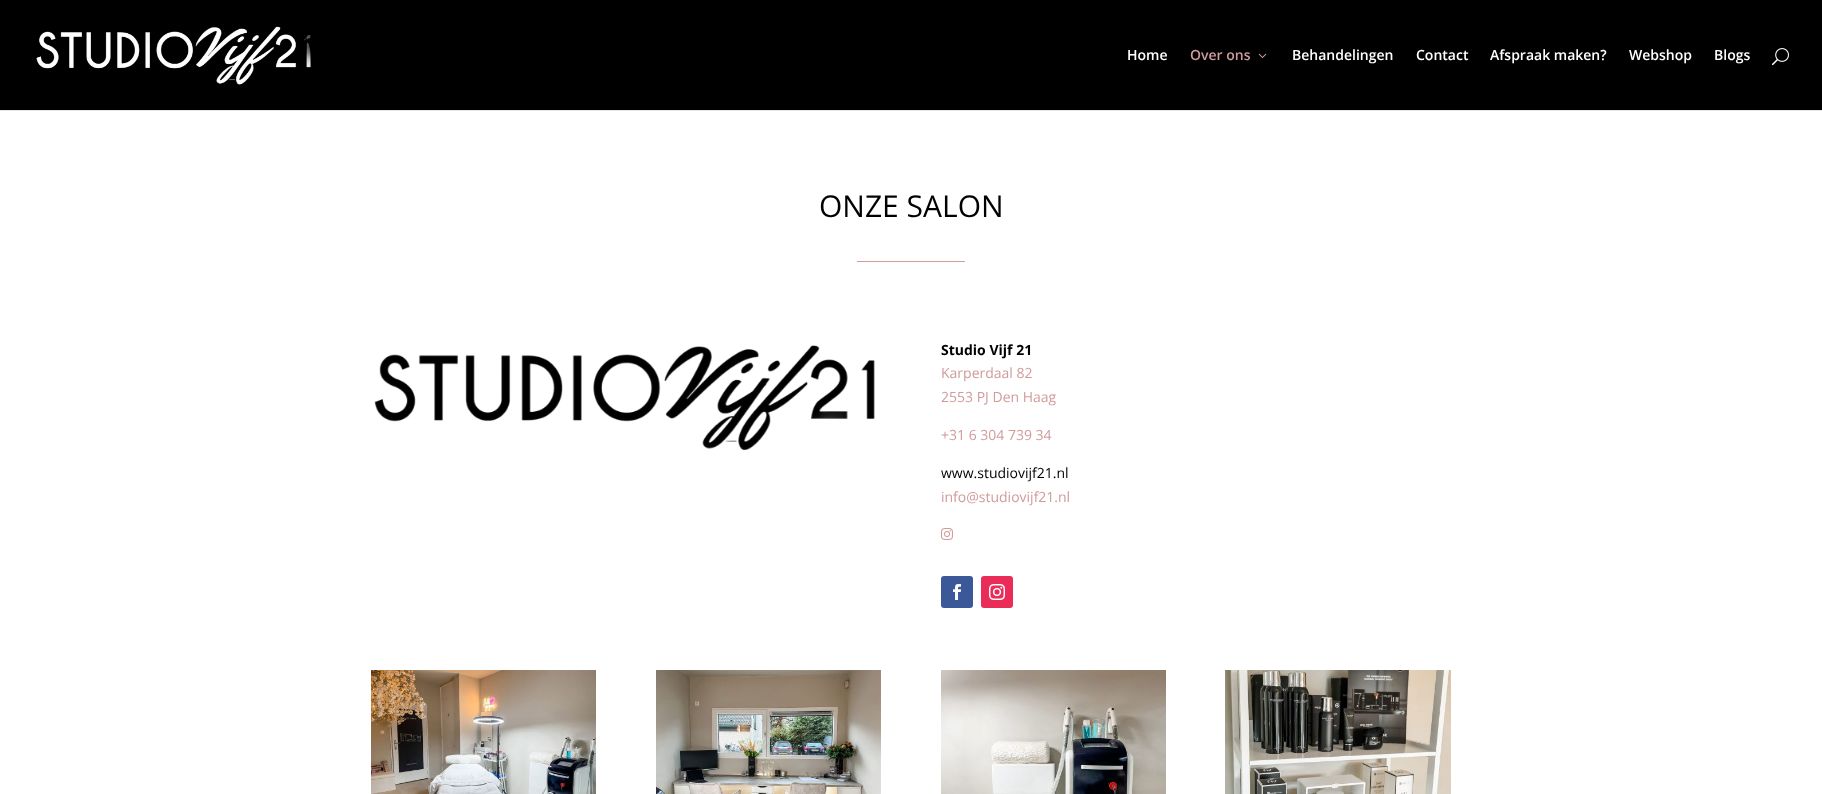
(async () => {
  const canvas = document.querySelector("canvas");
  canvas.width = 1822;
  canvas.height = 794;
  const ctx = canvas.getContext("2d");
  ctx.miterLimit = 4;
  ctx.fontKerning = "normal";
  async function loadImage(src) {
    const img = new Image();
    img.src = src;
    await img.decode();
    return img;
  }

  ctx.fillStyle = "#ffffff";
  ctx.fillRect(0, 0, 1822, 794);
  ctx.fillStyle = "#e6e6e6";
  ctx.fillRect(0, 110, 1822, 1);
  ctx.fillStyle = "#000000";
  ctx.fillRect(0, 0, 1822, 110);
  ctx.drawImage(await loadImage("img/1.png"), 36, 26, 275, 59);
  ctx.drawImage(await loadImage("img/2.png"), 1258, 53, 9, 5);
  ctx.drawImage(await loadImage("img/3.png"), 1772, 48, 17, 18);
  ctx.fillStyle = "#d19b9b";
  ctx.fillRect(857, 261, 108, 1);
  ctx.drawImage(await loadImage("img/4.png"), 374, 345, 501, 106);
  ctx.drawImage(await loadImage("img/5.png"), 941, 528, 12, 12);
  ctx.fillStyle = "#3b5998";
  ctx.beginPath();
  ctx.roundRect(941, 576, 32, 32, 3);
  ctx.fill();
  ctx.drawImage(await loadImage("img/6.png"), 953, 584, 8, 16);
  ctx.fillStyle = "#ea2c59";
  ctx.beginPath();
  ctx.roundRect(981, 576, 32, 32, 3);
  ctx.fill();
  ctx.drawImage(await loadImage("img/7.png"), 989, 584, 16, 16);
  ctx.drawImage(await loadImage("img/8.png"), 371, 670, 225, 124);
  ctx.drawImage(await loadImage("img/9.png"), 656, 670, 225, 124);
  ctx.drawImage(await loadImage("img/10.png"), 941, 670, 225, 124);
  ctx.drawImage(await loadImage("img/11.png"), 1225, 670, 226, 124);
  ctx.font = "600 14px Open Sans";
  ctx.fillStyle = "#ffffff";
  ctx.fillText("Home", 1127, 60);
  ctx.fillStyle = "#d19b9b";
  ctx.fillText("Over ons", 1190, 60);
  ctx.fillStyle = "#ffffff";
  for (const [text, x, y] of [
    ["Behandelingen", 1292, 60],
    ["Contact", 1416, 60],
    ["Afspraak maken?", 1490, 60],
    ["Webshop", 1629, 60],
    ["Blogs", 1714, 60],
  ]) {
    ctx.fillText(text, x, y);
  }
  ctx.font = "30px Open Sans";
  ctx.fillStyle = "#000000";
  ctx.fillText("ONZE SALON", 819, 217);
  ctx.font = "bold 14px Open Sans";
  ctx.fillText("Studio Vijf 21", 941, 355);
  ctx.font = "14px Open Sans";
  ctx.fillStyle = "#d19b9b";
  for (const [text, x, y] of [
    ["Karperdaal 82", 941, 378],
    ["2553 PJ Den Haag", 941, 402],
    ["+31 6 304 739 34", 941, 440],
  ]) {
    ctx.fillText(text, x, y);
  }
  ctx.fillStyle = "#000000";
  ctx.fillText("www.studiovijf21.nl", 941, 478);
  ctx.fillStyle = "#d19b9b";
  ctx.fillText("info@studiovijf21.nl", 941, 502);
})();
